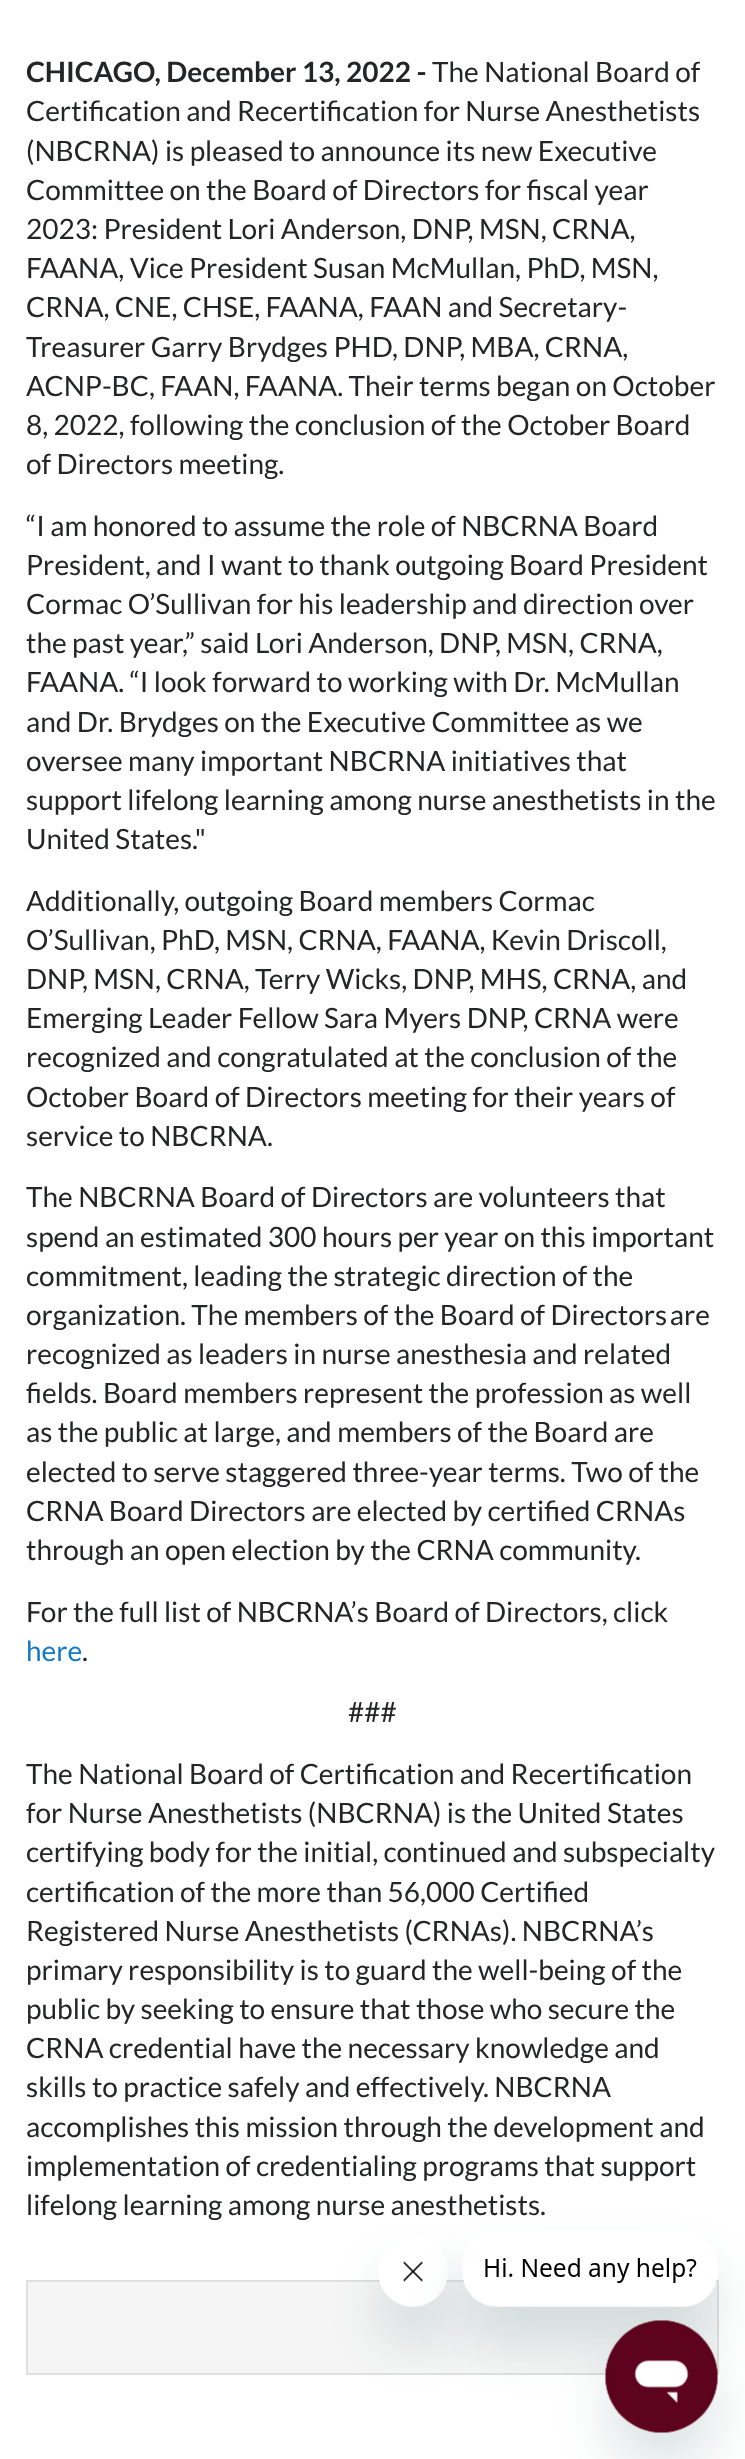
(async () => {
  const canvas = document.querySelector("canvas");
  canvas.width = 745;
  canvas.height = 2459;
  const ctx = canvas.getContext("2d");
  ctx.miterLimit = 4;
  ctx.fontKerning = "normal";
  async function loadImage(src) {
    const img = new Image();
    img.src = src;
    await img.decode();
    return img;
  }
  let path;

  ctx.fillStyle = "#ffffff";
  ctx.fillRect(0, 0, 745, 2459);
  ctx.fillStyle = "#f5f5f5";
  ctx.beginPath();
  ctx.rect(27, 2281, 691, 93);
  ctx.fill();
  ctx.strokeStyle = "#e0e0e0";
  ctx.lineWidth = 2;
  ctx.stroke();
  ctx.save();
  path = new Path2D("M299 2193H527V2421H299ZM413 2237C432.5 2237 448 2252.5 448 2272C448 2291.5 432.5 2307 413 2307C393.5 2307 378 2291.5 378 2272C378 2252.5 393.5 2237 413 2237Z");
  ctx.clip(path, "evenodd");
  ctx.fillStyle = "rgba(23, 73, 77, 0.15)";
  ctx.filter = "blur(26px)";
  ctx.beginPath();
  ctx.roundRect(378, 2272, 70, 70, 35);
  ctx.fill();
  ctx.filter = "none";
  ctx.restore();
  ctx.drawImage(await loadImage("img/2.png"), 379, 2261, 68, 46);
  ctx.save();
  path = new Path2D("M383 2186H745V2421H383ZM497 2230H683C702.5 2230 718 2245.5 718 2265V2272C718 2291.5 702.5 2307 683 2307H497C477.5 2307 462 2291.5 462 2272V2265C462 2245.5 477.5 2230 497 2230Z");
  ctx.clip(path, "evenodd");
  ctx.fillStyle = "rgba(23, 73, 77, 0.15)";
  ctx.filter = "blur(26px)";
  ctx.beginPath();
  ctx.roundRect(462, 2265, 256, 77, 35);
  ctx.fill();
  ctx.filter = "none";
  ctx.restore();
  ctx.drawImage(await loadImage("img/1.png"), 463, 2258, 253, 48);
  ctx.fillStyle = "rgba(23, 73, 77, 0.15)";
  ctx.filter = "blur(26px)";
  ctx.beginPath();
  ctx.roundRect(606, 2356, 112, 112, 56);
  ctx.fill();
  ctx.filter = "none";
  ctx.drawImage(await loadImage("img/3.png"), 605, 2320, 113, 113);
  ctx.font = "bold 28px Lato";
  ctx.fillStyle = "#242526";
  ctx.fillText("CHICAGO, December 13, 2022 -", 26, 82);
  ctx.font = "28px Lato";
  for (const [text, x, y] of [
    ["The National Board of", 432, 82],
    ["Certification and Recertification for Nurse Anesthetists", 26, 121],
    ["(NBCRNA) is pleased to announce its new Executive", 26, 161],
    ["Committee on the Board of Directors for fiscal year", 26, 200],
    ["2023: President Lori Anderson, DNP, MSN, CRNA,", 26, 239],
    ["FAANA, Vice President Susan McMullan, PhD, MSN,", 26, 278],
    ["CRNA, CNE, CHSE, FAANA, FAAN and Secretary-", 26, 317],
    ["Treasurer Garry Brydges PHD, DNP, MBA, CRNA,", 26, 357],
    ["ACNP-BC, FAAN, FAANA. Their terms began on October", 26, 396],
    ["8, 2022, following the conclusion of the October Board", 26, 435],
    ["of Directors meeting.", 26, 474],
    ["“I am honored to assume the role of NBCRNA Board", 26, 536],
    ["President, and I want to thank outgoing Board President", 26, 575],
    ["Cormac O’Sullivan for his leadership and direction over", 26, 614],
    ["the past year,” said Lori Anderson, DNP, MSN, CRNA,", 26, 653],
    ["FAANA. “I look forward to working with Dr. McMullan", 26, 692],
    ["and Dr. Brydges on the Executive Committee as we", 26, 732],
    ["oversee many important NBCRNA initiatives that", 26, 771],
    ["support lifelong learning among nurse anesthetists in the", 26, 810],
    ["United States.\"", 26, 849],
    ["Additionally, outgoing Board members Cormac", 26, 911],
    ["O’Sullivan, PhD, MSN, CRNA, FAANA, Kevin Driscoll,", 26, 950],
    ["DNP, MSN, CRNA, Terry Wicks, DNP, MHS, CRNA, and", 26, 989],
    ["Emerging Leader Fellow Sara Myers DNP, CRNA were", 26, 1028],
    ["recognized and congratulated at the conclusion of the", 26, 1067],
    ["October Board of Directors meeting for their years of", 26, 1107],
    ["service to NBCRNA.", 26, 1146],
    ["The NBCRNA Board of Directors are volunteers that", 26, 1207],
    ["spend an estimated 300 hours per year on this important", 26, 1247],
    ["commitment, leading the strategic direction of the", 26, 1286],
    ["organization. The members of the Board of Directors are", 26, 1325],
    ["recognized as leaders in nurse anesthesia and related", 26, 1364],
    ["fields. Board members represent the profession as well", 26, 1403],
    ["as the public at large, and members of the Board are", 26, 1442],
    ["elected to serve staggered three-year terms. Two of the", 26, 1482],
    ["CRNA Board Directors are elected by certified CRNAs", 26, 1521],
    ["through an open election by the CRNA community.", 26, 1560],
    ["For the full list of NBCRNA’s Board of Directors, click", 26, 1622],
  ]) {
    ctx.fillText(text, x, y);
  }
  ctx.fillStyle = "#1379c7";
  ctx.fillText("here", 26, 1661);
  ctx.fillStyle = "#242526";
  for (const [text, x, y] of [
    [".", 82, 1661],
    ["###", 348, 1722],
    ["The National Board of Certification and Recertification", 26, 1784],
    ["for Nurse Anesthetists (NBCRNA) is the United States", 26, 1823],
    ["certifying body for the initial, continued and subspecialty", 26, 1862],
    ["certification of the more than 56,000 Certified", 26, 1902],
    ["Registered Nurse Anesthetists (CRNAs). NBCRNA’s", 26, 1941],
    ["primary responsibility is to guard the well-being of the", 26, 1980],
    ["public by seeking to ensure that those who secure the", 26, 2019],
    ["CRNA credential have the necessary knowledge and", 26, 2058],
    ["skills to practice safely and effectively. NBCRNA", 26, 2097],
    ["accomplishes this mission through the development and", 26, 2137],
    ["implementation of credentialing programs that support", 26, 2176],
    ["lifelong learning among nurse anesthetists.", 26, 2215],
  ]) {
    ctx.fillText(text, x, y);
  }
})();
